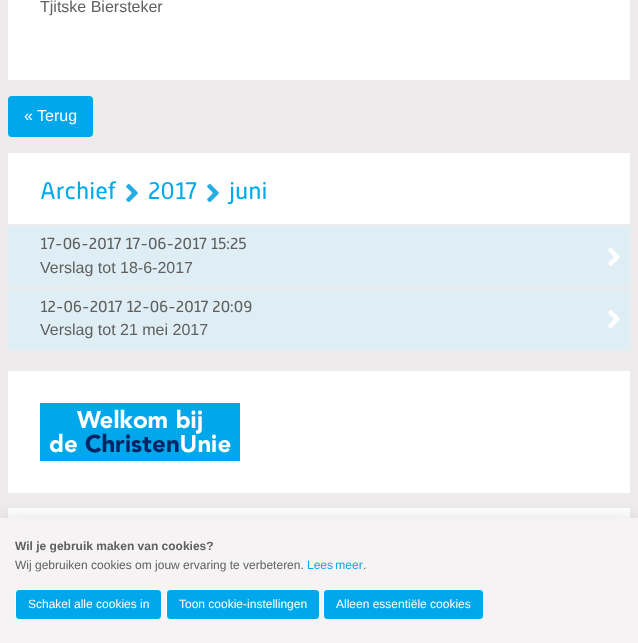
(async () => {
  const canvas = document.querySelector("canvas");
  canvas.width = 638;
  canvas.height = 643;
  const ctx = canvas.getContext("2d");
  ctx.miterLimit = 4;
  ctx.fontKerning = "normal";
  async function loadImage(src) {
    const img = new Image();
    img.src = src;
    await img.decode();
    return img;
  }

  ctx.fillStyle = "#edebeb";
  ctx.fillRect(0, 0, 638, 643);
  ctx.fillStyle = "#ffffff";
  ctx.fillRect(8, 0, 622, 224);
  ctx.fillStyle = "#edebeb";
  ctx.fillRect(8, 80, 622, 73);
  ctx.fillStyle = "#00a7eb";
  ctx.beginPath();
  ctx.roundRect(8, 96, 85, 41, 4);
  ctx.fill();
  ctx.drawImage(await loadImage("img/1.png"), 126, 184, 12, 18);
  ctx.drawImage(await loadImage("img/1.png"), 207, 184, 12, 18);
  ctx.fillStyle = "#deeef4";
  ctx.fillRect(8, 232, 622, 49);
  ctx.save();
  ctx.beginPath();
  ctx.rect(8, 0, 622, 352);
  ctx.clip();
  ctx.strokeStyle = "#deeef4";
  ctx.lineWidth = 6;
  ctx.strokeRect(5, 229, 628, 55);
  ctx.restore();
  ctx.drawImage(await loadImage("img/2.png"), 608, 248, 12, 18);
  ctx.fillRect(8, 295, 622, 49);
  ctx.save();
  ctx.beginPath();
  ctx.rect(8, 0, 622, 352);
  ctx.clip();
  ctx.strokeStyle = "#deeef4";
  ctx.lineWidth = 6;
  ctx.strokeRect(5, 292, 628, 55);
  ctx.restore();
  ctx.drawImage(await loadImage("img/2.png"), 608, 310, 12, 18);
  ctx.fillStyle = "#ffffff";
  ctx.fillRect(8, 371, 622, 122);
  ctx.drawImage(await loadImage("img/3.png"), 40, 403, 200, 58);
  ctx.fillRect(8, 508, 622, 10);
  ctx.fillStyle = "rgba(0, 0, 0, 0.2)";
  ctx.filter = "blur(10px)";
  ctx.beginPath();
  ctx.rect(0, 523, 638, 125);
  ctx.fill();
  ctx.filter = "none";
  ctx.fillStyle = "#f5f3f3";
  ctx.fillRect(0, 518, 638, 125);
  ctx.fillStyle = "#00a7eb";
  ctx.beginPath();
  ctx.roundRect(15.5, 589.5, 146, 30, 3.5);
  ctx.fill();
  ctx.strokeStyle = "#ffffff";
  ctx.stroke();
  ctx.beginPath();
  ctx.roundRect(166.5, 589.5, 153, 30, 3.5);
  ctx.fill();
  ctx.stroke();
  ctx.beginPath();
  ctx.roundRect(323.5, 589.5, 160, 30, 3.5);
  ctx.fill();
  ctx.stroke();
  ctx.font = "16px Liberation Sans";
  ctx.fillStyle = "#606060";
  ctx.fillText("Tjitske Biersteker", 40, 12);
  ctx.fillStyle = "#ffffff";
  ctx.fillText("« Terug", 24, 121);
  ctx.font = "24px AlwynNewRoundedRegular";
  ctx.fillStyle = "#00abec";
  for (const [text, x, y] of [
    ["Archief", 40, 199],
    ["2017", 148, 199],
    ["juni", 229, 199],
  ]) {
    ctx.fillText(text, x, y);
  }
  ctx.font = "16px AlwynNewRoundedRegular";
  ctx.fillStyle = "#606060";
  ctx.fillText("17-06-2017 17-06-2017 15:25", 40, 249);
  ctx.font = "16px Liberation Sans";
  ctx.fillText("Verslag tot 18-6-2017", 40, 273);
  ctx.font = "16px AlwynNewRoundedRegular";
  ctx.fillText("12-06-2017 12-06-2017 20:09", 40, 312);
  ctx.font = "16px Liberation Sans";
  ctx.fillText("Verslag tot 21 mei 2017", 40, 335);
  ctx.font = "bold 12px Liberation Sans";
  ctx.fillText("Wil je gebruik maken van cookies?", 15, 550);
  ctx.font = "12px Liberation Sans";
  ctx.fillText("Wij gebruiken cookies om jouw ervaring te verbeteren.", 15, 569);
  ctx.wordSpacing = "-1px";
  ctx.fillStyle = "#00abec";
  ctx.fillText("Lees meer", 307, 569);
  ctx.wordSpacing = "0px";
  ctx.fillStyle = "#606060";
  ctx.fillText(".", 363, 569);
  ctx.fillStyle = "#ffffff";
  for (const [text, x, y] of [
    ["Schakel alle cookies in", 28, 608],
    ["Toon cookie-instellingen", 179, 608],
    ["Alleen essentiële cookies", 336, 608],
  ]) {
    ctx.fillText(text, x, y);
  }
})();
